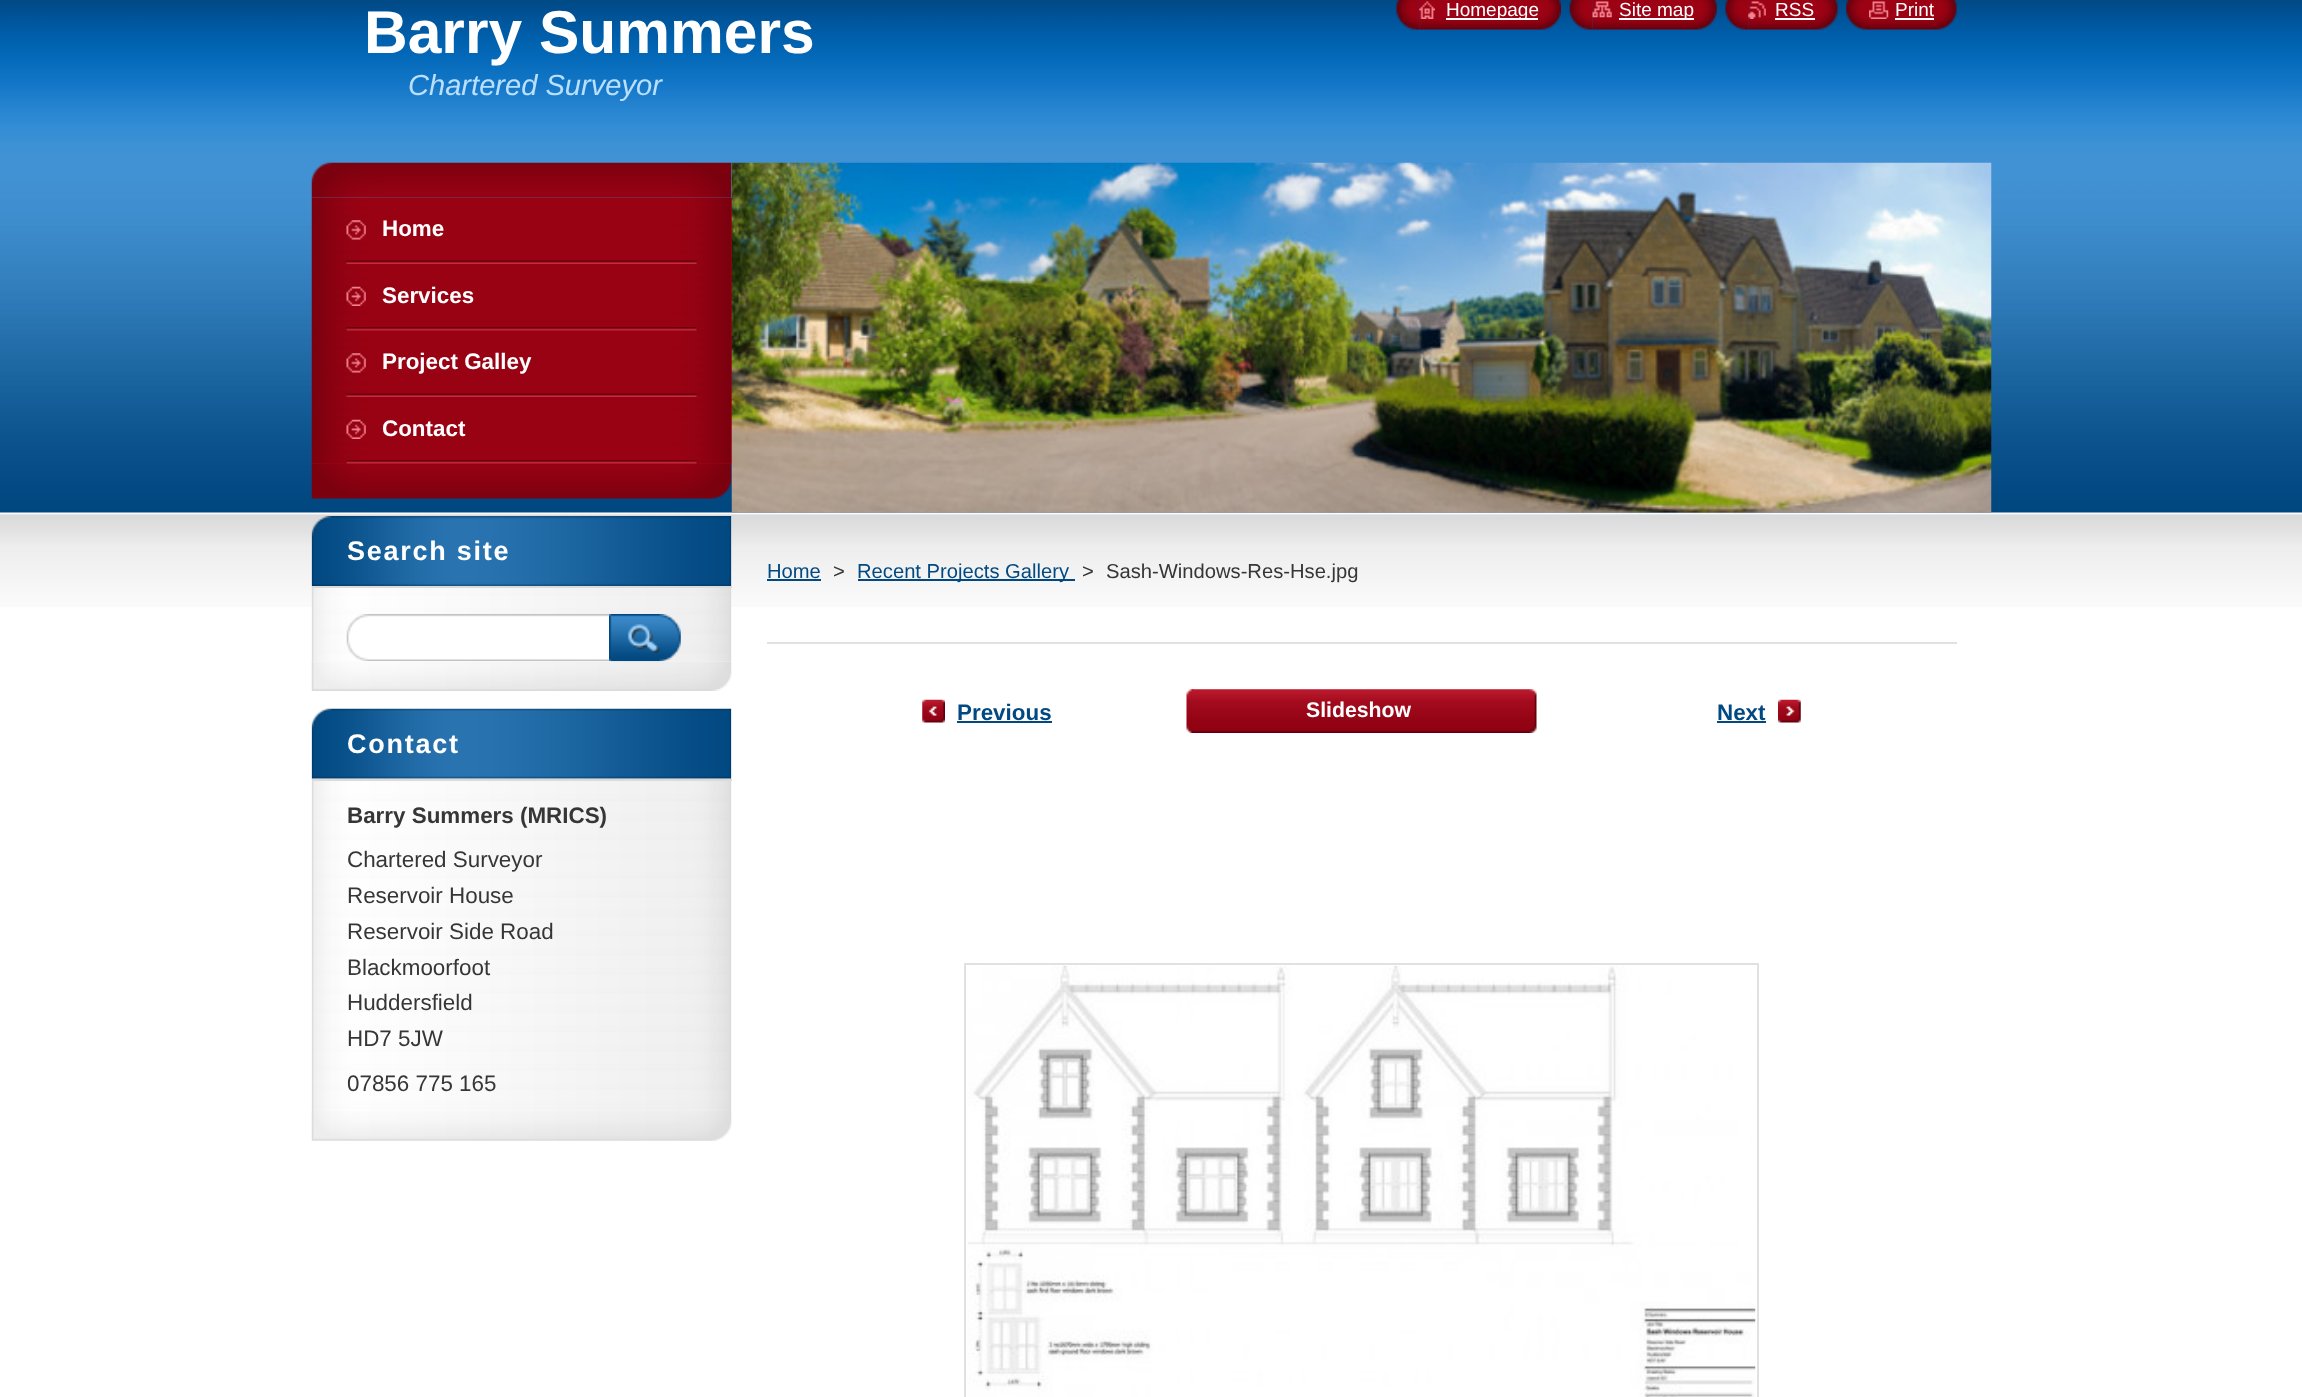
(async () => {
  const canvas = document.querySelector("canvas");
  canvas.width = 2302;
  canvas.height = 1397;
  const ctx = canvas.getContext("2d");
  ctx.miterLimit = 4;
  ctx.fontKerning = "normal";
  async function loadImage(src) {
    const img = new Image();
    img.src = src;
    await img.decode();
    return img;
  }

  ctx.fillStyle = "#ffffff";
  ctx.fillRect(0, 0, 2302, 1397);
  ctx.drawImage(await loadImage("img/1.png"), 0, 0, 2302, 607);
  ctx.drawImage(await loadImage("img/2.png"), 1396, 0, 24, 30);
  ctx.drawImage(await loadImage("img/3.png"), 1419, 0, 142, 30);
  ctx.drawImage(await loadImage("img/4.png"), 1419, 1, 16, 18);
  ctx.fillRect(1446, 18, 92, 2);
  ctx.drawImage(await loadImage("img/5.png"), 1569, 0, 24, 30);
  ctx.drawImage(await loadImage("img/6.png"), 1592, 0, 125, 30);
  ctx.drawImage(await loadImage("img/7.png"), 1592, 1, 20, 17);
  ctx.fillRect(1619, 18, 75, 2);
  ctx.drawImage(await loadImage("img/8.png"), 1725, 0, 24, 30);
  ctx.drawImage(await loadImage("img/9.png"), 1748, 0, 90, 30);
  ctx.drawImage(await loadImage("img/10.png"), 1748, 1, 18, 18);
  ctx.fillRect(1775, 18, 40, 2);
  ctx.drawImage(await loadImage("img/11.png"), 1846, 0, 23, 30);
  ctx.drawImage(await loadImage("img/12.png"), 1869, 0, 88, 30);
  ctx.drawImage(await loadImage("img/13.png"), 1869, 1, 20, 18);
  ctx.fillRect(1895, 18, 39, 2);
  ctx.drawImage(await loadImage("img/14.png"), 311, 162, 421, 36);
  ctx.drawImage(await loadImage("img/15.png"), 311, 463, 421, 36);
  ctx.fillStyle = "#9d0214";
  ctx.fillRect(312, 198, 420, 266);
  ctx.drawImage(await loadImage("img/16.png"), 311, 197, 421, 267);
  ctx.drawImage(await loadImage("img/17.png"), 346, 260, 351, 4);
  ctx.drawImage(await loadImage("img/18.png"), 346, 220, 20, 20);
  ctx.drawImage(await loadImage("img/19.png"), 346, 327, 351, 4);
  ctx.drawImage(await loadImage("img/20.png"), 346, 286, 20, 20);
  ctx.drawImage(await loadImage("img/21.png"), 346, 393, 351, 4);
  ctx.drawImage(await loadImage("img/22.png"), 346, 353, 20, 20);
  ctx.drawImage(await loadImage("img/23.png"), 346, 460, 351, 4);
  ctx.drawImage(await loadImage("img/24.png"), 346, 419, 20, 20);
  ctx.drawImage(await loadImage("img/25.png"), 311, 661, 421, 30);
  ctx.drawImage(await loadImage("img/26.png"), 311, 516, 421, 70);
  ctx.drawImage(await loadImage("img/27.png"), 311, 586, 421, 75);
  ctx.fillStyle = "#dbdbdb";
  ctx.fillRect(312, 586, 420, 2);
  ctx.drawImage(await loadImage("img/28.png"), 346, 614, 263, 47);
  ctx.drawImage(await loadImage("img/29.png"), 609, 614, 72, 48);
  ctx.drawImage(await loadImage("img/30.png"), 311, 1111, 421, 30);
  ctx.drawImage(await loadImage("img/32.png"), 311, 778, 421, 333);
  ctx.drawImage(await loadImage("img/31.png"), 311, 708, 421, 71);
  ctx.fillRect(312, 779, 420, 2);
  ctx.drawImage(await loadImage("img/33.png"), 731, 162, 1261, 351);
  for (const [x, y, w, h, color] of [
    [767, 579, 54, 2, "#024981"],
    [858, 579, 217, 2, "#024981"],
    [767, 642, 1190, 2, "#e1e1e1"],
  ]) {
    ctx.fillStyle = color;
    ctx.fillRect(x, y, w, h);
  }
  ctx.drawImage(await loadImage("img/34.png"), 922, 699, 23, 24);
  ctx.fillStyle = "#024981";
  ctx.fillRect(957, 721, 95, 2);
  ctx.drawImage(await loadImage("img/35.png"), 1186, 689, 8, 44);
  ctx.drawImage(await loadImage("img/36.png"), 1191, 689, 346, 44);
  ctx.drawImage(await loadImage("img/37.png"), 1778, 699, 23, 24);
  ctx.fillRect(1717, 721, 49, 2);
  ctx.strokeStyle = "#e1e1e1";
  ctx.lineWidth = 2;
  ctx.strokeRect(965, 964, 793, 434);
  ctx.drawImage(await loadImage("img/38.png"), 967, 965, 789, 432);
  ctx.font = "bold 60.5px Liberation Sans";
  ctx.fillStyle = "#ffffff";
  ctx.fillText("Barry Summers", 364, 53);
  ctx.font = "italic 29.1px Liberation Sans";
  ctx.fillStyle = "#bae0ff";
  ctx.fillText("Chartered Surveyor", 408, 95);
  ctx.font = "19px Liberation Sans";
  ctx.fillStyle = "#ffffff";
  for (const [text, x, y] of [
    ["Homepage", 1446, 16],
    ["Site map", 1619, 16],
    ["RSS", 1775, 16],
    ["Print", 1895, 16],
  ]) {
    ctx.fillText(text, x, y);
  }
  ctx.font = "bold 22.4px Liberation Sans";
  for (const [text, x, y] of [
    ["Home", 382, 236],
    ["Services", 382, 303],
    ["Project Galley", 382, 369],
    ["Contact", 382, 436],
  ]) {
    ctx.fillText(text, x, y);
  }
  ctx.letterSpacing = "1.75px";
  ctx.font = "bold 27px Liberation Sans";
  ctx.fillText("Search site", 347, 560);
  ctx.fillText("Contact", 347, 753);
  ctx.letterSpacing = "0px";
  ctx.font = "bold 22.4px Liberation Sans";
  ctx.fillStyle = "#363636";
  ctx.fillText("Barry Summers (MRICS)", 347, 823);
  ctx.font = "22.4px Liberation Sans";
  for (const [text, x, y] of [
    ["Chartered Surveyor", 347, 867],
    ["Reservoir House", 347, 903],
    ["Reservoir Side Road", 347, 939],
    ["Blackmoorfoot", 347, 975],
    ["Huddersfield", 347, 1010],
    ["HD7 5JW", 347, 1046],
    ["07856 775 165", 347, 1091],
  ]) {
    ctx.fillText(text, x, y);
  }
  ctx.font = "20.2px Liberation Sans";
  ctx.fillStyle = "#024981";
  ctx.fillText("Home", 767, 578);
  ctx.fillStyle = "#363636";
  ctx.fillText(">", 833, 578);
  ctx.fillStyle = "#024981";
  ctx.fillText("Recent Projects Gallery", 857, 578);
  ctx.fillStyle = "#363636";
  ctx.fillText(">", 1082, 578);
  ctx.fillText("Sash-Windows-Res-Hse.jpg", 1106, 578);
  ctx.font = "bold 22.4px Liberation Sans";
  ctx.fillStyle = "#024981";
  ctx.fillText("Previous", 957, 720);
  ctx.font = "bold 21.25px Liberation Sans";
  ctx.fillStyle = "#ffffff";
  ctx.fillText("Slideshow", 1306, 717);
  ctx.font = "bold 22.4px Liberation Sans";
  ctx.fillStyle = "#024981";
  ctx.fillText("Next", 1717, 720);
})();
